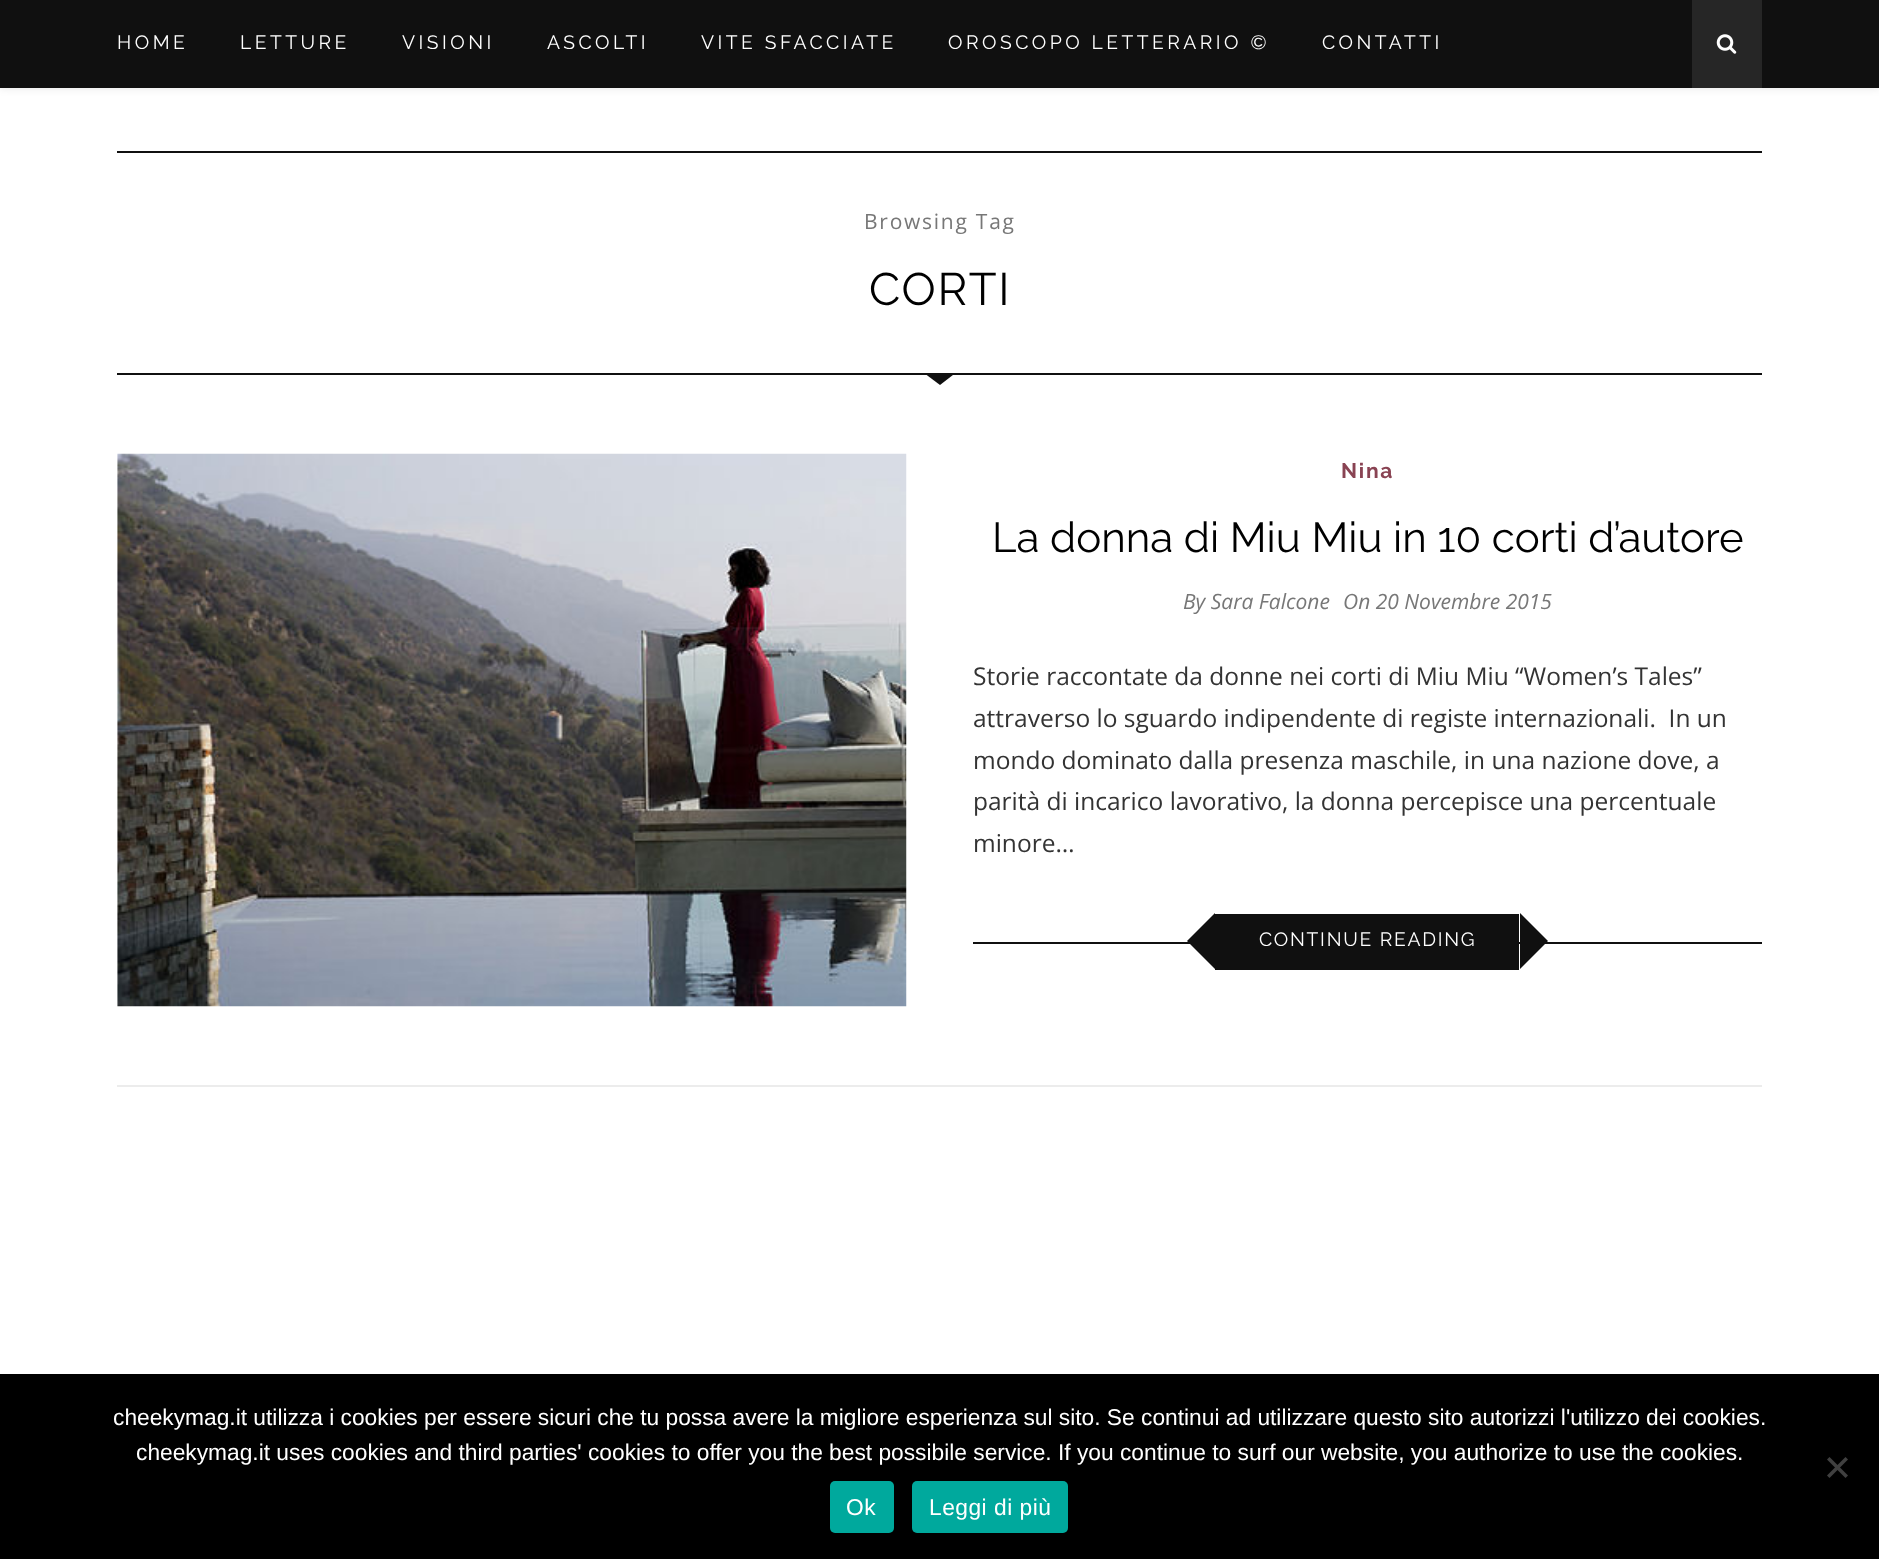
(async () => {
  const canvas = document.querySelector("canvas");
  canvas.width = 1879;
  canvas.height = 1559;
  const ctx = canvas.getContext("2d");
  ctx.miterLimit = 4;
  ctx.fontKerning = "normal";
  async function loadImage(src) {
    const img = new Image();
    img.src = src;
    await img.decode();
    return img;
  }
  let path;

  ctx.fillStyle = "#ffffff";
  ctx.fillRect(0, 0, 1879, 1559);
  ctx.fillStyle = "rgba(0, 0, 0, 0.1)";
  ctx.filter = "blur(4.5px)";
  ctx.beginPath();
  ctx.rect(0, 0, 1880, 88);
  ctx.fill();
  ctx.filter = "none";
  ctx.fillStyle = "#101010";
  ctx.fillRect(0, 0, 1879, 88);
  ctx.fillStyle = "#262626";
  ctx.fillRect(1692, 0, 70, 88);
  ctx.drawImage(await loadImage("img/1.png"), 1716, 34, 21, 20);
  ctx.fillStyle = "#101010";
  ctx.fillRect(117, 151, 1645, 2);
  ctx.fillRect(117, 373, 1645, 2);
  path = new Path2D("M924 373H955.5L940 385Z");
  ctx.fill(path);
  ctx.fillStyle = "#ececec";
  ctx.fillRect(117, 1085, 1645, 2);
  ctx.drawImage(await loadImage("img/2.png"), 117, 453, 790, 554);
  ctx.fillStyle = "#101010";
  ctx.fillRect(973, 942, 789, 2);
  ctx.fillRect(1215, 914, 304, 56);
  path = new Path2D("M1215 913V969L1187 941Z");
  ctx.fill(path);
  path = new Path2D("M1520 969V913L1548 941Z");
  ctx.fill(path);
  ctx.fillStyle = "#000000";
  ctx.fillRect(0, 1374, 1879, 185);
  ctx.fillStyle = "#404040";
  path = new Path2D("M1845.5 1457L1848 1459.5L1829.5 1478L1827 1475.5Z");
  ctx.fill(path);
  path = new Path2D("M1827 1459.5L1829.5 1457L1848 1475.5L1845.5 1478Z");
  ctx.fill(path);
  ctx.fillStyle = "#00a99d";
  ctx.beginPath();
  ctx.roundRect(830, 1481, 64, 52, 5);
  ctx.fill();
  ctx.beginPath();
  ctx.roundRect(912, 1481, 156, 52, 5);
  ctx.fill();
  ctx.letterSpacing = "3.5px";
  ctx.font = "19.25px Raleway";
  ctx.fillStyle = "#ffffff";
  for (const [text, x, y] of [
    ["HOME", 117, 49],
    ["LETTURE", 240, 49],
    ["VISIONI", 402, 49],
    ["ASCOLTI", 547, 49],
    ["VITE SFACCIATE", 701, 49],
    ["OROSCOPO LETTERARIO ©", 948, 49],
    ["CONTATTI", 1322, 49],
  ]) {
    ctx.fillText(text, x, y);
  }
  ctx.letterSpacing = "1.75px";
  ctx.font = "21px Open Sans";
  ctx.fillStyle = "#777777";
  ctx.fillText("Browsing Tag", 864, 229);
  ctx.font = "45.5px Raleway";
  ctx.fillStyle = "#000000";
  ctx.fillText("CORTI", 869, 305);
  ctx.font = "bold 21px Raleway";
  ctx.fillStyle = "#894353";
  ctx.fillText("Nina", 1341, 478);
  ctx.letterSpacing = "0px";
  ctx.font = "42px Raleway";
  ctx.fillStyle = "#000000";
  ctx.fillText("La donna di Miu Miu in 10 corti d’autore", 992, 552);
  ctx.font = "italic 21px Open Sans";
  ctx.fillStyle = "#777777";
  ctx.fillText("By Sara Falcone", 1183, 609);
  ctx.fillText("On 20 Novembre 2015", 1343, 609);
  ctx.font = "24.5px Open Sans";
  ctx.fillStyle = "#333333";
  for (const [text, x, y] of [
    ["Storie raccontate da donne nei corti di Miu Miu “Women’s Tales”", 973, 685],
    ["attraverso lo sguardo indipendente di registe internazionali.  In un", 973, 727],
    ["mondo dominato dalla presenza maschile, in una nazione dove, a", 973, 769],
    ["parità di incarico lavorativo, la donna percepisce una percentuale", 973, 810],
    ["minore…", 973, 852],
  ]) {
    ctx.fillText(text, x, y);
  }
  ctx.letterSpacing = "1.75px";
  ctx.font = "19.25px Raleway";
  ctx.fillStyle = "#ffffff";
  ctx.fillText("CONTINUE READING", 1259, 946);
  ctx.letterSpacing = "0px";
  ctx.font = "22.75px Liberation Sans";
  ctx.fillText("cheekymag.it utilizza i cookies per essere sicuri che tu possa avere la migliore esperienza sul sito. Se continui ad utilizzare questo sito autorizzi l'utilizzo dei cookies.", 113, 1425);
  ctx.fillText("cheekymag.it uses cookies and third parties' cookies to offer you the best possibile service. If you continue to surf our website, you authorize to use the cookies.", 136, 1460);
  ctx.letterSpacing = "0.5px";
  ctx.fillText("Ok", 846, 1515);
  ctx.fillText("Leggi di più", 929, 1515);
})();
